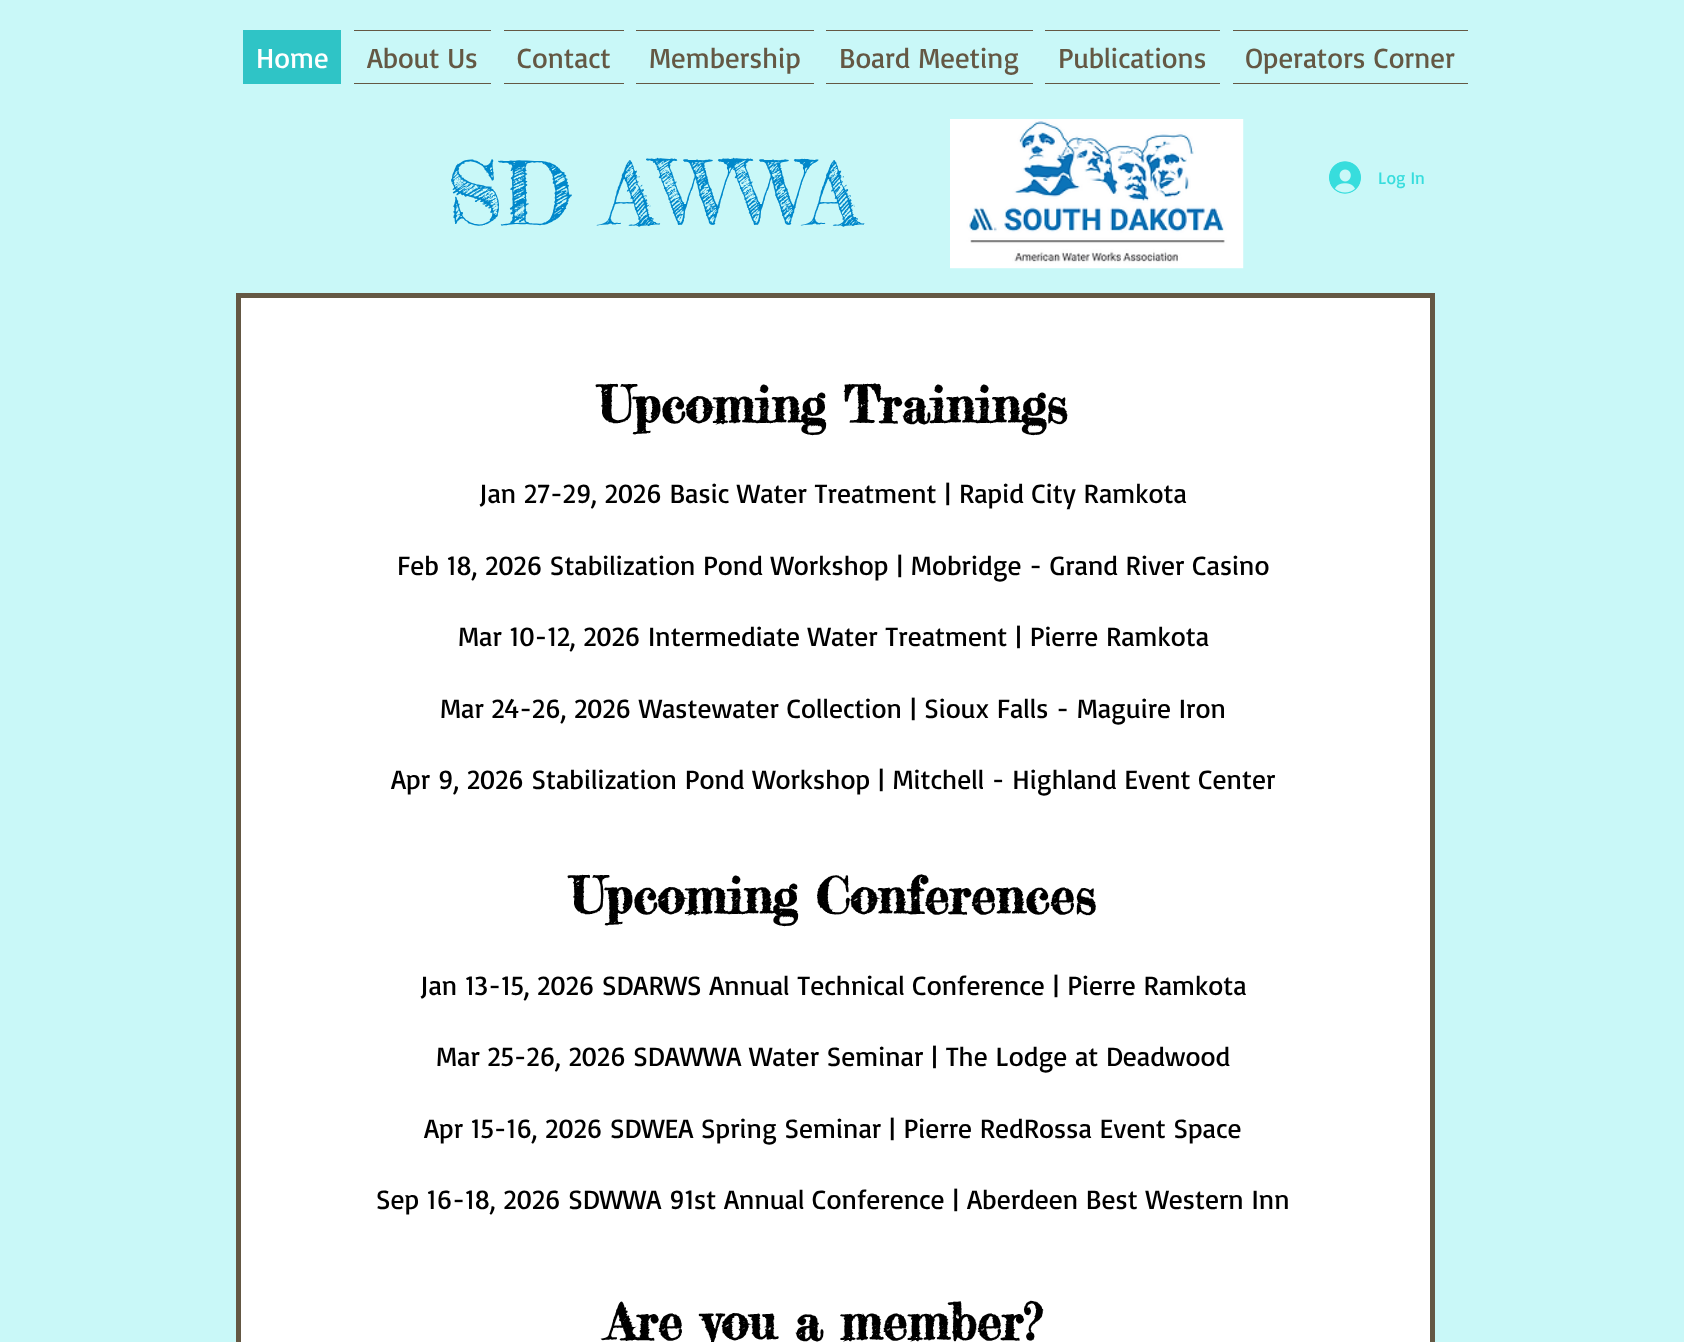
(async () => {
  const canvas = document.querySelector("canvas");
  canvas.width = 1684;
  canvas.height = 1342;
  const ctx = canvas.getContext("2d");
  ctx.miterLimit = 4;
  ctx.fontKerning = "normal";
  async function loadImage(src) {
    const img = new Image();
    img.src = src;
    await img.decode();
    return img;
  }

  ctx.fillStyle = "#c9f8f8";
  ctx.fillRect(0, 0, 1684, 1342);
  for (const [x, y, w, h, color] of [
    [243, 30, 98, 54, "#2fc4c6"],
    [354, 30, 137, 1, "#645844"],
    [354, 83, 137, 1, "#645844"],
    [504, 30, 120, 1, "#645844"],
    [504, 83, 120, 1, "#645844"],
    [636, 30, 178, 1, "#645844"],
    [636, 83, 178, 1, "#645844"],
    [826, 30, 207, 1, "#645844"],
    [826, 83, 207, 1, "#645844"],
    [1045, 30, 175, 1, "#645844"],
    [1045, 83, 175, 1, "#645844"],
    [1233, 30, 235, 1, "#645844"],
    [1233, 83, 235, 1, "#645844"],
  ]) {
    ctx.fillStyle = color;
    ctx.fillRect(x, y, w, h);
  }
  ctx.drawImage(await loadImage("img/1.png"), 950, 119, 294, 150);
  ctx.drawImage(await loadImage("img/2.png"), 1329, 161, 32, 33);
  ctx.fillStyle = "#ffffff";
  ctx.beginPath();
  ctx.rect(238.5, 295.5, 1194, 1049);
  ctx.fill();
  ctx.strokeStyle = "#645844";
  ctx.lineWidth = 5;
  ctx.stroke();
  ctx.font = "28.75px Basic";
  ctx.fillText("Home", 256, 68);
  ctx.fillStyle = "#645844";
  for (const [text, x, y] of [
    ["About Us", 367, 68],
    ["Contact", 517, 68],
    ["Membership", 649, 68],
    ["Board Meeting", 839, 68],
    ["Publications", 1058, 68],
    ["Operators Corner", 1245, 68],
  ]) {
    ctx.fillText(text, x, y);
  }
  ctx.font = "87.5px Fredericka the Great";
  ctx.fillStyle = "#0088cb";
  ctx.fillText("SD AWWA", 447, 225);
  ctx.font = "17.5px Basic";
  ctx.fillStyle = "#37dddd";
  ctx.fillText("Log In", 1378, 184);
  ctx.font = "bold 50px Fredericka the Great";
  ctx.fillStyle = "#000000";
  ctx.fillText("Upcoming Trainings", 598, 423);
  ctx.font = "27.5px Basic";
  for (const [text, x, y] of [
    ["Jan 27-29, 2026 Basic Water Treatment | Rapid City Ramkota", 479, 503],
    ["Feb 18, 2026 Stabilization Pond Workshop | Mobridge - Grand River Casino", 397, 575],
    ["Mar 10-12, 2026 Intermediate Water Treatment | Pierre Ramkota", 458, 646],
    ["Mar 24-26, 2026 Wastewater Collection | Sioux Falls - Maguire Iron", 440, 718],
    ["Apr 9, 2026 Stabilization Pond Workshop | Mitchell - Highland Event Center", 391, 789],
  ]) {
    ctx.fillText(text, x, y);
  }
  ctx.font = "bold 50px Fredericka the Great";
  ctx.fillText("Upcoming Conferences", 570, 914);
  ctx.font = "27.5px Basic";
  for (const [text, x, y] of [
    ["Jan 13-15, 2026 SDARWS Annual Technical Conference | Pierre Ramkota", 420, 995],
    ["Mar 25-26, 2026 SDAWWA Water Seminar | The Lodge at Deadwood", 436, 1066],
    ["Apr 15-16, 2026 SDWEA Spring Seminar | Pierre RedRossa Event Space", 424, 1138],
    ["Sep 16-18, 2026 SDWWA 91st Annual Conference | Aberdeen Best Western Inn", 376, 1209],
  ]) {
    ctx.fillText(text, x, y);
  }
  ctx.font = "bold 50px Fredericka the Great";
  ctx.fillText("Are you a member?", 606, 1340);
})();
